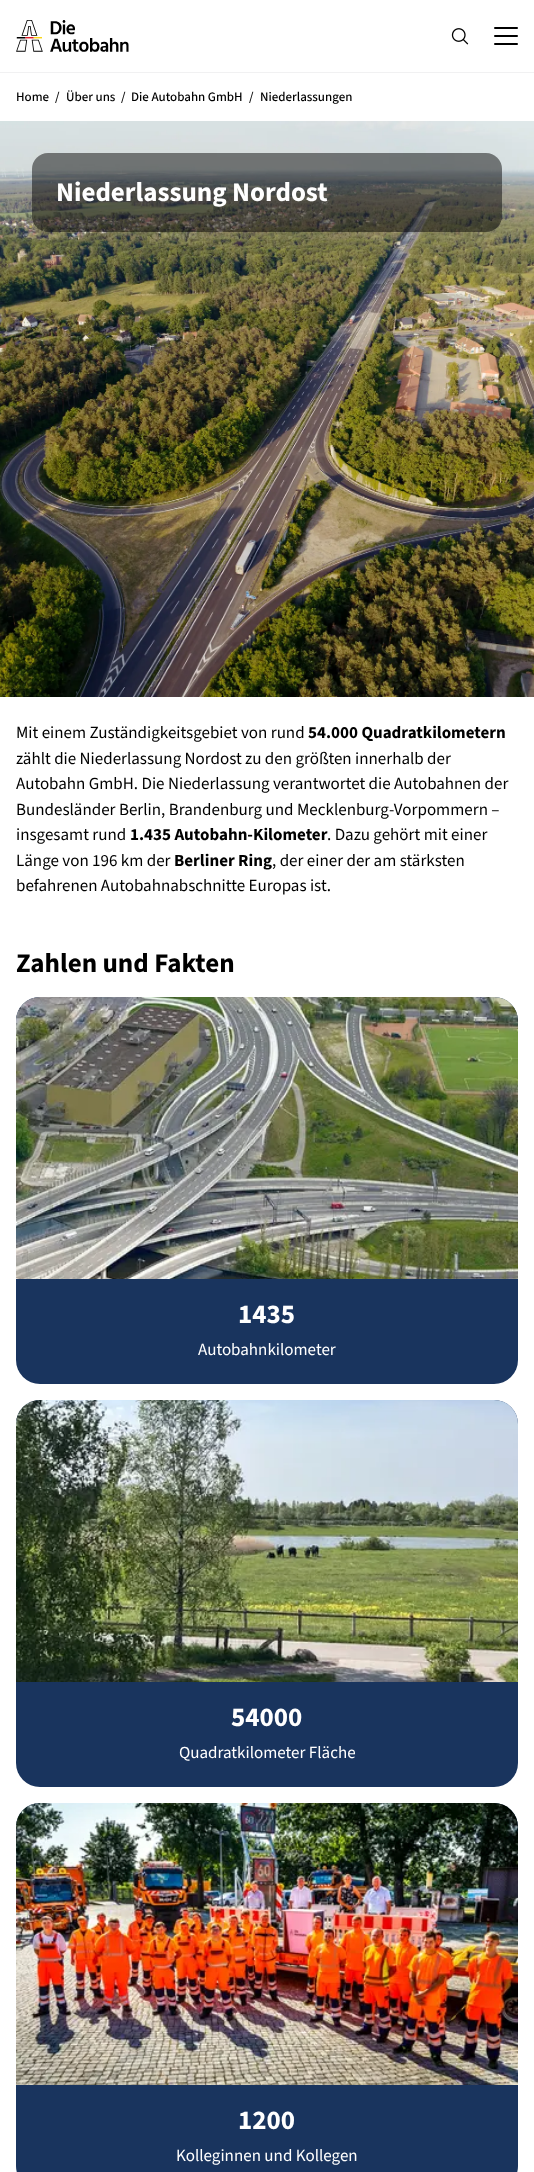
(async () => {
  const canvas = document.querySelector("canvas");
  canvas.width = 534;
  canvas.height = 2172;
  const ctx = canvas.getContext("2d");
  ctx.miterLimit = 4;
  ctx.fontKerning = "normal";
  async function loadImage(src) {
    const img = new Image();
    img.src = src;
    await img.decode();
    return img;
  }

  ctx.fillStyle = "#ffffff";
  ctx.fillRect(0, 0, 534, 2172);
  ctx.fillStyle = "#f1f1f2";
  ctx.fillRect(0, 72, 534, 1);
  ctx.drawImage(await loadImage("img/1.png"), 16, 20, 113, 32);
  ctx.drawImage(await loadImage("img/2.png"), 451, 28, 18, 17);
  ctx.fillStyle = "#000000";
  ctx.beginPath();
  ctx.roundRect(494, 27, 24, 2, 1);
  ctx.fill();
  ctx.beginPath();
  ctx.roundRect(494, 35, 24, 2, 1);
  ctx.fill();
  ctx.beginPath();
  ctx.roundRect(494, 43, 24, 2, 1);
  ctx.fill();
  ctx.drawImage(await loadImage("img/3.png"), 0, 121, 534, 576);
  ctx.fillStyle = "rgba(0, 0, 0, 0.48)";
  ctx.beginPath();
  ctx.roundRect(32, 153, 470, 79, 16);
  ctx.fill();
  ctx.fillStyle = "#19345e";
  ctx.beginPath();
  ctx.roundRect(16, 997, 502, 387, 24);
  ctx.fill();
  ctx.drawImage(await loadImage("img/4.png"), 16, 997, 502, 282);
  ctx.beginPath();
  ctx.roundRect(16, 1400, 502, 387, 24);
  ctx.fill();
  ctx.drawImage(await loadImage("img/5.png"), 16, 1400, 502, 282);
  ctx.beginPath();
  ctx.roundRect(16, 1803, 502, 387, 24);
  ctx.fill();
  ctx.drawImage(await loadImage("img/6.png"), 16, 1803, 502, 282);
  ctx.font = "200 13px 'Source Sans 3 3'";
  ctx.fillStyle = "#000000";
  for (const [text, x, y] of [
    ["Home", 16, 101],
    ["/", 55, 101],
    ["Über uns", 66, 101],
    ["/", 121, 101],
    ["Die Autobahn GmbH", 131, 101],
    ["/", 249, 101],
    ["Niederlassungen", 260, 101],
  ]) {
    ctx.fillText(text, x, y);
  }
  ctx.font = "200 27px 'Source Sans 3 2'";
  ctx.fillStyle = "#ffffff";
  ctx.fillText("Niederlassung Nordost", 56, 201);
  ctx.font = "200 17px 'Source Sans 3'";
  ctx.fillStyle = "#000000";
  ctx.fillText("Mit einem Zuständigkeitsgebiet von rund", 16, 738);
  ctx.font = "200 17px 'Source Sans 3 2'";
  ctx.fillText("54.000 Quadratkilometern", 308, 738);
  ctx.font = "200 17px 'Source Sans 3'";
  for (const [text, x, y] of [
    ["zählt die Niederlassung Nordost zu den größten innerhalb der", 16, 764],
    ["Autobahn GmbH. Die Niederlassung verantwortet die Autobahnen der", 16, 789],
    ["Bundesländer Berlin, Brandenburg und Mecklenburg-Vorpommern –", 16, 815],
    ["insgesamt rund", 16, 840],
  ]) {
    ctx.fillText(text, x, y);
  }
  ctx.font = "200 17px 'Source Sans 3 2'";
  ctx.fillText("1.435 Autobahn-Kilometer", 130, 840);
  ctx.font = "200 17px 'Source Sans 3'";
  ctx.fillText(". Dazu gehört mit einer", 327, 840);
  ctx.fillText("Länge von 196 km der", 16, 866);
  ctx.font = "200 17px 'Source Sans 3 2'";
  ctx.fillText("Berliner Ring", 174, 866);
  ctx.font = "200 17px 'Source Sans 3'";
  ctx.fillText(", der einer der am stärksten", 272, 866);
  ctx.fillText("befahrenen Autobahnabschnitte Europas ist.", 16, 891);
  ctx.font = "200 27px 'Source Sans 3 2'";
  ctx.fillText("Zahlen und Fakten", 16, 972);
  ctx.fillStyle = "#ffffff";
  ctx.fillText("1435", 238, 1323);
  ctx.font = "200 17px 'Source Sans 3'";
  ctx.fillText("Autobahnkilometer", 198, 1355);
  ctx.font = "200 27px 'Source Sans 3 2'";
  ctx.fillText("54000", 231, 1726);
  ctx.font = "200 17px 'Source Sans 3'";
  ctx.fillText("Quadratkilometer Fläche", 179, 1758);
  ctx.font = "200 27px 'Source Sans 3 2'";
  ctx.fillText("1200", 238, 2129);
  ctx.font = "200 17px 'Source Sans 3'";
  ctx.fillText("Kolleginnen und Kollegen", 176, 2161);
})();
